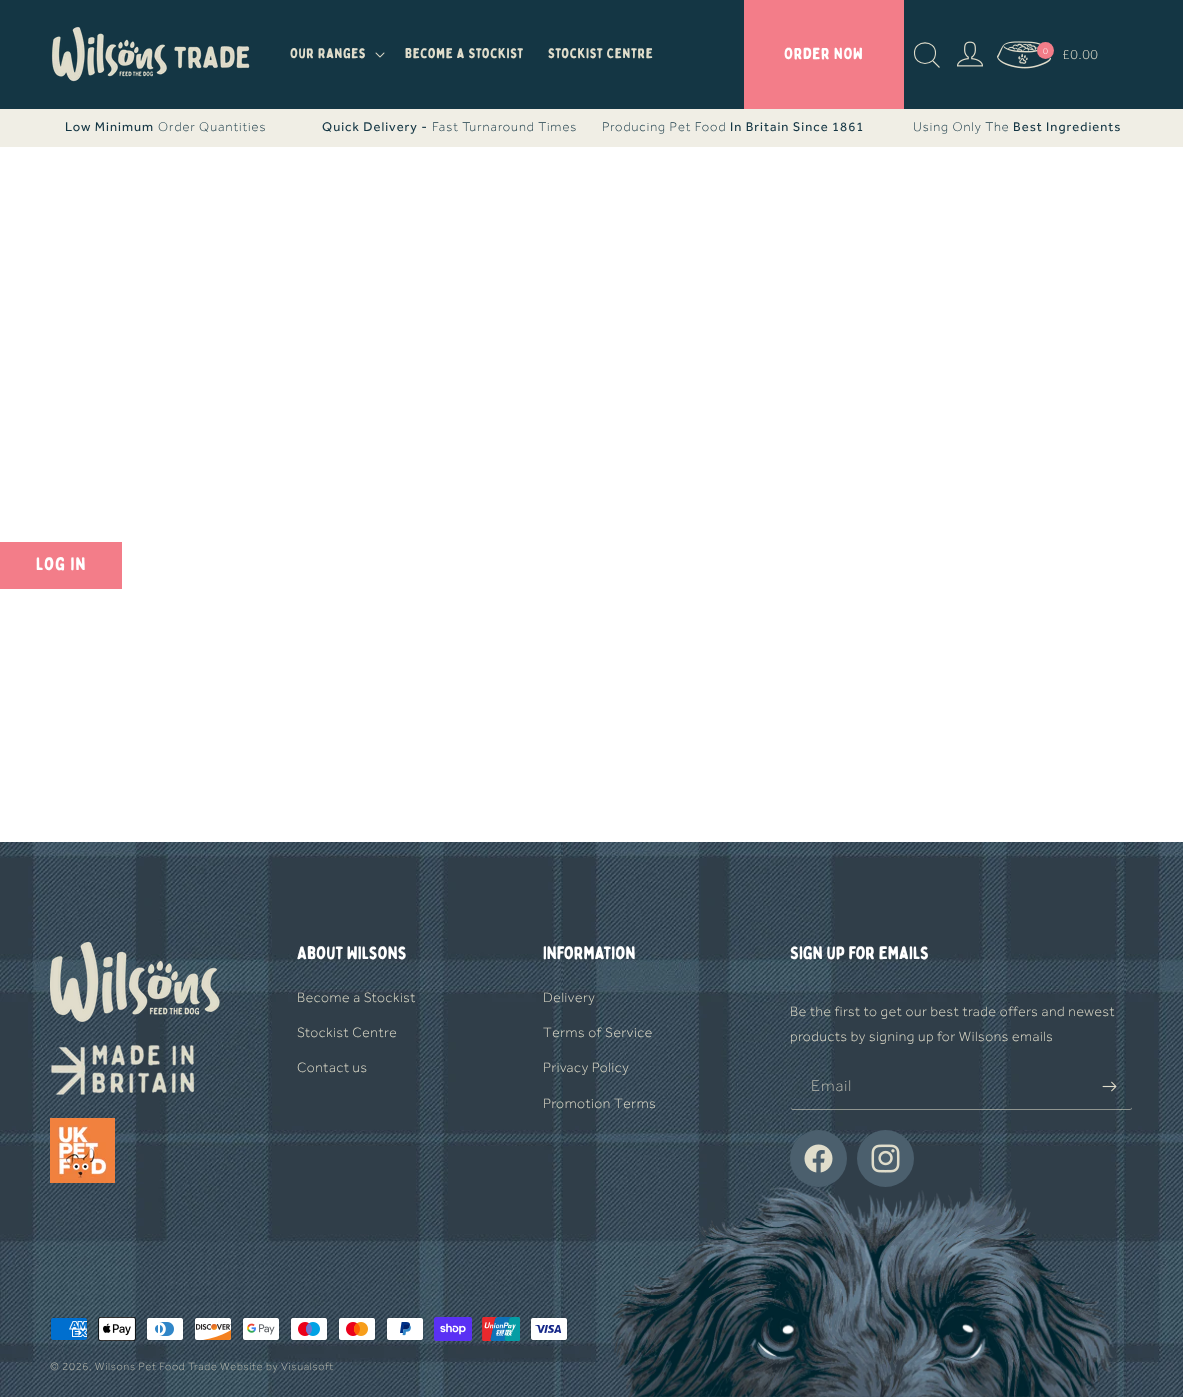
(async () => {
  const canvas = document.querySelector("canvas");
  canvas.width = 1183;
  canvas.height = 1397;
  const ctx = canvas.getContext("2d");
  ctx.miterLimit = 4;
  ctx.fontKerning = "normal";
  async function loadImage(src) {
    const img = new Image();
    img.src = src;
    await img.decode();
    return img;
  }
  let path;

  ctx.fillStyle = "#ffffff";
  ctx.fillRect(0, 0, 1183, 1397);
  ctx.fillStyle = "#143644";
  ctx.fillRect(0, 0, 1183, 109);
  ctx.drawImage(await loadImage("img/1.png"), 51, 26, 199, 56);
  ctx.drawImage(await loadImage("img/2.png"), 375, 52, 10, 6);
  ctx.fillStyle = "#f37d89";
  ctx.fillRect(744, 0, 160, 109);
  path = new Path2D("M935.5 53C935.5 67 914.5 67 914.5 53C914.5 39.5 935.5 39.5 935.5 53ZM939.5 67.5L933 61");
  ctx.strokeStyle = "#e0ddcb";
  ctx.lineWidth = 1.1;
  ctx.stroke(path);
  ctx.drawImage(await loadImage("img/3.png"), 957, 41, 26, 26);
  ctx.drawImage(await loadImage("img/4.png"), 997, 41, 54, 28);
  ctx.beginPath();
  ctx.arc(1045.5, 50.5, 8.5, 0, Math.PI * 2);
  ctx.fill();
  ctx.fillStyle = "#f0eee5";
  ctx.fillRect(0, 109, 1183, 38);
  ctx.fillStyle = "#f37d89";
  ctx.fillRect(0, 542, 122, 47);
  ctx.drawImage(await loadImage("img/5.png"), 0, 842, 1183, 555);
  ctx.drawImage(await loadImage("img/6.png"), 50, 942, 170, 80);
  ctx.drawImage(await loadImage("img/7.png"), 51, 1045, 144, 50);
  ctx.drawImage(await loadImage("img/8.png"), 50, 1118, 65, 65);
  ctx.drawImage(await loadImage("img/9.png"), 1102, 1081, 15, 11);
  ctx.fillStyle = "rgba(224, 221, 203, 0.55)";
  path = new Path2D("M791 1107C791 1108 791 1110 793 1110H1130L1132 1109V1107C1132 1108 1131 1109 1130 1109H793C792 1109 791 1108 791 1107Z");
  ctx.fill(path);
  ctx.fillStyle = "#4b5f6d";
  ctx.beginPath();
  ctx.arc(818.5, 1158.5, 28.5, 0, Math.PI * 2);
  ctx.fill();
  ctx.drawImage(await loadImage("img/10.png"), 804, 1144, 29, 29);
  ctx.beginPath();
  ctx.arc(885.5, 1158.5, 28.5, 0, Math.PI * 2);
  ctx.fill();
  ctx.drawImage(await loadImage("img/11.png"), 871, 1144, 29, 29);
  ctx.drawImage(await loadImage("img/12.png"), 50, 1317, 38, 24);
  ctx.drawImage(await loadImage("img/13.png"), 98, 1317, 38, 24);
  ctx.drawImage(await loadImage("img/14.png"), 146, 1317, 38, 24);
  ctx.drawImage(await loadImage("img/15.png"), 194, 1317, 38, 24);
  ctx.drawImage(await loadImage("img/16.png"), 242, 1317, 38, 24);
  ctx.drawImage(await loadImage("img/17.png"), 290, 1317, 38, 24);
  ctx.drawImage(await loadImage("img/18.png"), 338, 1317, 38, 24);
  ctx.drawImage(await loadImage("img/19.png"), 386, 1317, 38, 24);
  ctx.drawImage(await loadImage("img/20.png"), 434, 1317, 38, 24);
  ctx.drawImage(await loadImage("img/21.png"), 482, 1317, 38, 24);
  ctx.drawImage(await loadImage("img/22.png"), 530, 1317, 38, 24);
  ctx.drawImage(await loadImage("img/23.png"), 611, 1187, 503, 210);
  ctx.letterSpacing = "0.6px";
  ctx.font = "14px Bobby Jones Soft";
  ctx.fillStyle = "#e0ddcb";
  for (const [text, x, y] of [
    ["Our Ranges", 290, 58],
    ["Become a Stockist", 405, 58],
    ["Stockist Centre", 548, 58],
  ]) {
    ctx.fillText(text, x, y);
  }
  ctx.font = "16px Bobby Jones Soft";
  ctx.fillStyle = "#ffffff";
  ctx.fillText("Order NOW", 784, 59);
  ctx.font = "300 9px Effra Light";
  ctx.fillText("0", 1043, 54);
  ctx.font = "300 14px Effra Light";
  ctx.fillStyle = "#e0ddcb";
  ctx.fillText("£0.00", 1062, 59);
  ctx.letterSpacing = "1px";
  ctx.font = "13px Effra";
  ctx.fillStyle = "#143644";
  ctx.fillText("Low Minimum", 65, 131);
  ctx.font = "300 13px Effra Light";
  ctx.fillText("Order Quantities", 158, 131);
  ctx.font = "13px Effra";
  ctx.fillText("Quick Delivery -", 322, 131);
  ctx.font = "300 13px Effra Light";
  ctx.fillText("Fast Turnaround Times", 432, 131);
  ctx.fillText("Producing Pet Food", 602, 131);
  ctx.font = "13px Effra";
  ctx.fillText("In Britain Since 1861", 730, 131);
  ctx.font = "300 13px Effra Light";
  ctx.fillText("Using Only The", 913, 131);
  ctx.font = "13px Effra";
  ctx.fillText("Best Ingredients", 1013, 131);
  ctx.font = "18px Bobby Jones Soft";
  ctx.fillStyle = "#ffffff";
  ctx.fillText("Log in", 36, 570);
  ctx.letterSpacing = "0px";
  ctx.fillText("About Wilsons", 297, 959);
  ctx.letterSpacing = "0.6px";
  ctx.font = "300 14px Effra Light";
  ctx.fillStyle = "#e0ddcb";
  for (const [text, x, y] of [
    ["Become a Stockist", 297, 1002],
    ["Stockist Centre", 297, 1037],
    ["Contact us", 297, 1072],
  ]) {
    ctx.fillText(text, x, y);
  }
  ctx.letterSpacing = "0px";
  ctx.font = "18px Bobby Jones Soft";
  ctx.fillStyle = "#ffffff";
  ctx.fillText("Information", 543, 959);
  ctx.letterSpacing = "0.6px";
  ctx.font = "300 14px Effra Light";
  ctx.fillStyle = "#e0ddcb";
  for (const [text, x, y] of [
    ["Delivery", 543, 1002],
    ["Terms of Service", 543, 1037],
    ["Privacy Policy", 543, 1072],
    ["Promotion Terms", 543, 1108],
  ]) {
    ctx.fillText(text, x, y);
  }
  ctx.letterSpacing = "0px";
  ctx.font = "18px Bobby Jones Soft";
  ctx.fillStyle = "#ffffff";
  ctx.fillText("Sign up for Emails", 790, 959);
  ctx.letterSpacing = "0.6px";
  ctx.font = "300 14px Effra Light";
  ctx.fillStyle = "#e0ddcb";
  ctx.fillText("Be the first to get our best trade offers and newest", 790, 1016);
  ctx.fillText("products by signing up for Wilsons emails", 790, 1041);
  ctx.letterSpacing = "1px";
  ctx.font = "300 16px Effra Light";
  ctx.fillStyle = "#b7b9af";
  ctx.fillText("Email", 811, 1091);
  ctx.letterSpacing = "0.7px";
  ctx.font = "300 11px Effra Light";
  ctx.fillText("© 2026, Wilsons Pet Food Trade", 50, 1370);
  ctx.fillText("Website by Visualsoft", 220, 1370);
})();
